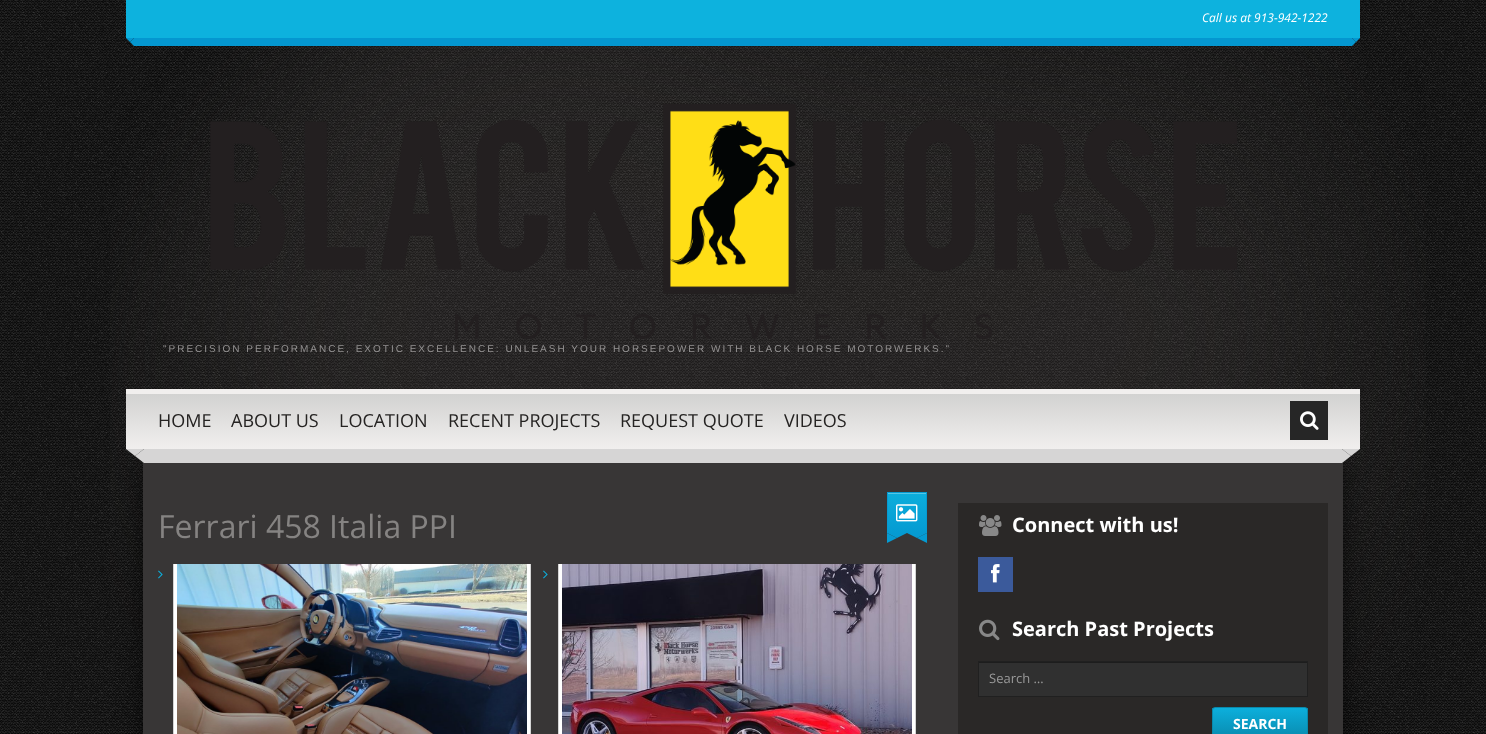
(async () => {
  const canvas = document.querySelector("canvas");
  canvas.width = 1486;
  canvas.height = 734;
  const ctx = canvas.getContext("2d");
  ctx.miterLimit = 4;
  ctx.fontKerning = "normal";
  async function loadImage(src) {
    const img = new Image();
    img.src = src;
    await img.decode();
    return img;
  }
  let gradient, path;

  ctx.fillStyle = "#ffffff";
  ctx.fillRect(0, 0, 1486, 734);
  ctx.drawImage(await loadImage("img/1.png"), 0, 0, 1486, 734);
  ctx.drawImage(await loadImage("img/2.png"), 110, 46, 1316, 650);
  ctx.fillStyle = "#0db2de";
  ctx.fillRect(126, 0, 1234, 38);
  ctx.fillStyle = "#0497d0";
  ctx.fillRect(134, 38, 1218, 8);
  path = new Path2D("M126 38H134L130 42Z");
  ctx.fill(path);
  path = new Path2D("M134 38V46L130 42Z");
  ctx.fill(path);
  path = new Path2D("M1352 38H1360L1356 42Z");
  ctx.fill(path);
  path = new Path2D("M1352 46V38L1356 42Z");
  ctx.fill(path);
  ctx.drawImage(await loadImage("img/3.png"), 210, 104, 1027, 235);
  ctx.fillStyle = "rgba(0, 0, 0, 0.6)";
  ctx.filter = "blur(12.5px)";
  ctx.beginPath();
  ctx.rect(143, 463, 1200, 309);
  ctx.fill();
  ctx.filter = "none";
  gradient = ctx.createLinearGradient(743, 394, 743, 449);
  gradient.addColorStop(0, "#d2d2d1");
  gradient.addColorStop(1, "#f1efee");
  ctx.fillStyle = gradient;
  ctx.fillRect(126, 394, 1234, 55);
  ctx.fillStyle = "#f1efee";
  ctx.fillRect(126, 389, 1234, 5);
  ctx.fillStyle = "#262626";
  ctx.fillRect(1290, 401, 38, 39);
  ctx.drawImage(await loadImage("img/4.png"), 1300, 411, 19, 19);
  ctx.fillStyle = "#d6d5d5";
  ctx.fillRect(144, 449, 1198, 14);
  path = new Path2D("M126 449H144L135 456Z");
  ctx.fill(path);
  path = new Path2D("M144 449V463L135 456Z");
  ctx.fill(path);
  path = new Path2D("M1342 449H1360L1351 456Z");
  ctx.fill(path);
  path = new Path2D("M1342 463V449L1351 456Z");
  ctx.fill(path);
  ctx.fillStyle = "#383636";
  ctx.fillRect(143, 463, 1200, 271);
  gradient = ctx.createLinearGradient(907, 493, 907, 533);
  gradient.addColorStop(0, "#0caedc");
  gradient.addColorStop(1, "#059bd2");
  ctx.fillStyle = gradient;
  ctx.fillRect(888, 494, 38, 39);
  for (const [x, y, w, h, color] of [
    [888, 493, 38, 1, "#55c6e7"],
    [887, 492, 40, 1, "#059bd2"],
    [926, 492, 1, 41, "#059bd2"],
    [887, 492, 1, 41, "#059bd2"],
  ]) {
    ctx.fillStyle = color;
    ctx.fillRect(x, y, w, h);
  }
  ctx.drawImage(await loadImage("img/5.png"), 896, 504, 22, 18);
  path = new Path2D("M887 533H907L897 538Z");
  ctx.fill(path);
  path = new Path2D("M887 543V533L897 538ZM907 533H927L917 538Z");
  ctx.fill(path);
  path = new Path2D("M927 533V543L917 538Z");
  ctx.fill(path);
  ctx.drawImage(await loadImage("img/6.png"), 158, 570, 5, 9);
  ctx.save();
  ctx.beginPath();
  ctx.rect(158, 564, 770, 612);
  ctx.clip();
  ctx.strokeStyle = "#ffffff";
  ctx.lineWidth = 3;
  ctx.strokeRect(175.5, 555.5, 353, 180);
  ctx.restore();
  ctx.drawImage(await loadImage("img/7.png"), 177, 564, 350, 170);
  ctx.save();
  ctx.beginPath();
  ctx.rect(158, 564, 770, 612);
  ctx.clip();
  ctx.strokeStyle = "#d4d4d4";
  ctx.strokeRect(173.5, 553.5, 357, 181);
  ctx.restore();
  ctx.drawImage(await loadImage("img/6.png"), 543, 570, 5, 9);
  ctx.save();
  ctx.beginPath();
  ctx.rect(158, 564, 770, 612);
  ctx.clip();
  ctx.strokeStyle = "#ffffff";
  ctx.lineWidth = 3;
  ctx.strokeRect(560.5, 555.5, 353, 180);
  ctx.restore();
  ctx.drawImage(await loadImage("img/8.png"), 562, 564, 350, 170);
  ctx.save();
  ctx.beginPath();
  ctx.rect(158, 564, 770, 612);
  ctx.clip();
  ctx.strokeStyle = "#d4d4d4";
  ctx.strokeRect(558.5, 553.5, 357, 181);
  ctx.restore();
  ctx.fillStyle = "#2a2827";
  ctx.fillRect(958, 503, 370, 231);
  ctx.drawImage(await loadImage("img/9.png"), 979, 515, 23, 21);
  ctx.fillStyle = "#3b5a9b";
  ctx.fillRect(978, 557, 35, 35);
  ctx.drawImage(await loadImage("img/10.png"), 991, 564, 9, 19);
  ctx.drawImage(await loadImage("img/11.png"), 979, 619, 21, 22);
  ctx.fillStyle = "#303030";
  ctx.fillRect(979, 663, 328, 33);
  ctx.fillStyle = "#1d1d1d";
  ctx.fillRect(979, 662, 328, 1);
  ctx.strokeStyle = "#202020";
  ctx.strokeRect(978.5, 661.5, 329, 35);
  ctx.save();
  ctx.beginPath();
  ctx.roundRect(1212, 707, 96, 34, 3);
  ctx.clip();
  gradient = ctx.createLinearGradient(1260, 708, 1260, 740);
  gradient.addColorStop(0, "#0cafdc");
  gradient.addColorStop(1, "#0989ac");
  ctx.fillStyle = gradient;
  ctx.fillRect(1212, 708, 96, 26);
  ctx.restore();
  ctx.beginPath();
  ctx.roundRect(1212.5, 707.5, 95, 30, 2.5);
  ctx.strokeStyle = "#0989ac";
  ctx.stroke();
  ctx.font = "italic 12px Open Sans";
  ctx.fillStyle = "#ffffff";
  ctx.fillText("Call us at 913-942-1222", 1202, 22);
  ctx.letterSpacing = "2px";
  ctx.font = "10px Liberation Sans";
  ctx.fillStyle = "#949292";
  ctx.fillText("\"PRECISION PERFORMANCE, EXOTIC EXCELLENCE: UNLEASH YOUR HORSEPOWER WITH BLACK HORSE MOTORWERKS.\"", 163, 352);
  ctx.letterSpacing = "0px";
  ctx.font = "18px Open Sans";
  ctx.fillStyle = "#252322";
  for (const [text, x, y] of [
    ["HOME", 158, 427],
    ["ABOUT US", 231, 427],
    ["LOCATION", 339, 427],
    ["RECENT PROJECTS", 448, 427],
    ["REQUEST QUOTE", 620, 427],
    ["VIDEOS", 784, 427],
  ]) {
    ctx.fillText(text, x, y);
  }
  ctx.font = "32px Open Sans";
  ctx.fillStyle = "#858382";
  ctx.fillText("Ferrari 458 Italia PPI", 158, 538);
  ctx.font = "bold 20px Open Sans";
  ctx.fillStyle = "#ffffff";
  ctx.fillText("Connect with us!", 1012, 532);
  ctx.fillText("Search Past Projects", 1012, 636);
  ctx.font = "13px Open Sans";
  ctx.fillStyle = "#999999";
  ctx.fillText("Search …", 989, 683);
  ctx.font = "bold 14px Open Sans";
  ctx.fillStyle = "#ffffff";
  ctx.fillText("SEARCH", 1233, 729);
})();
